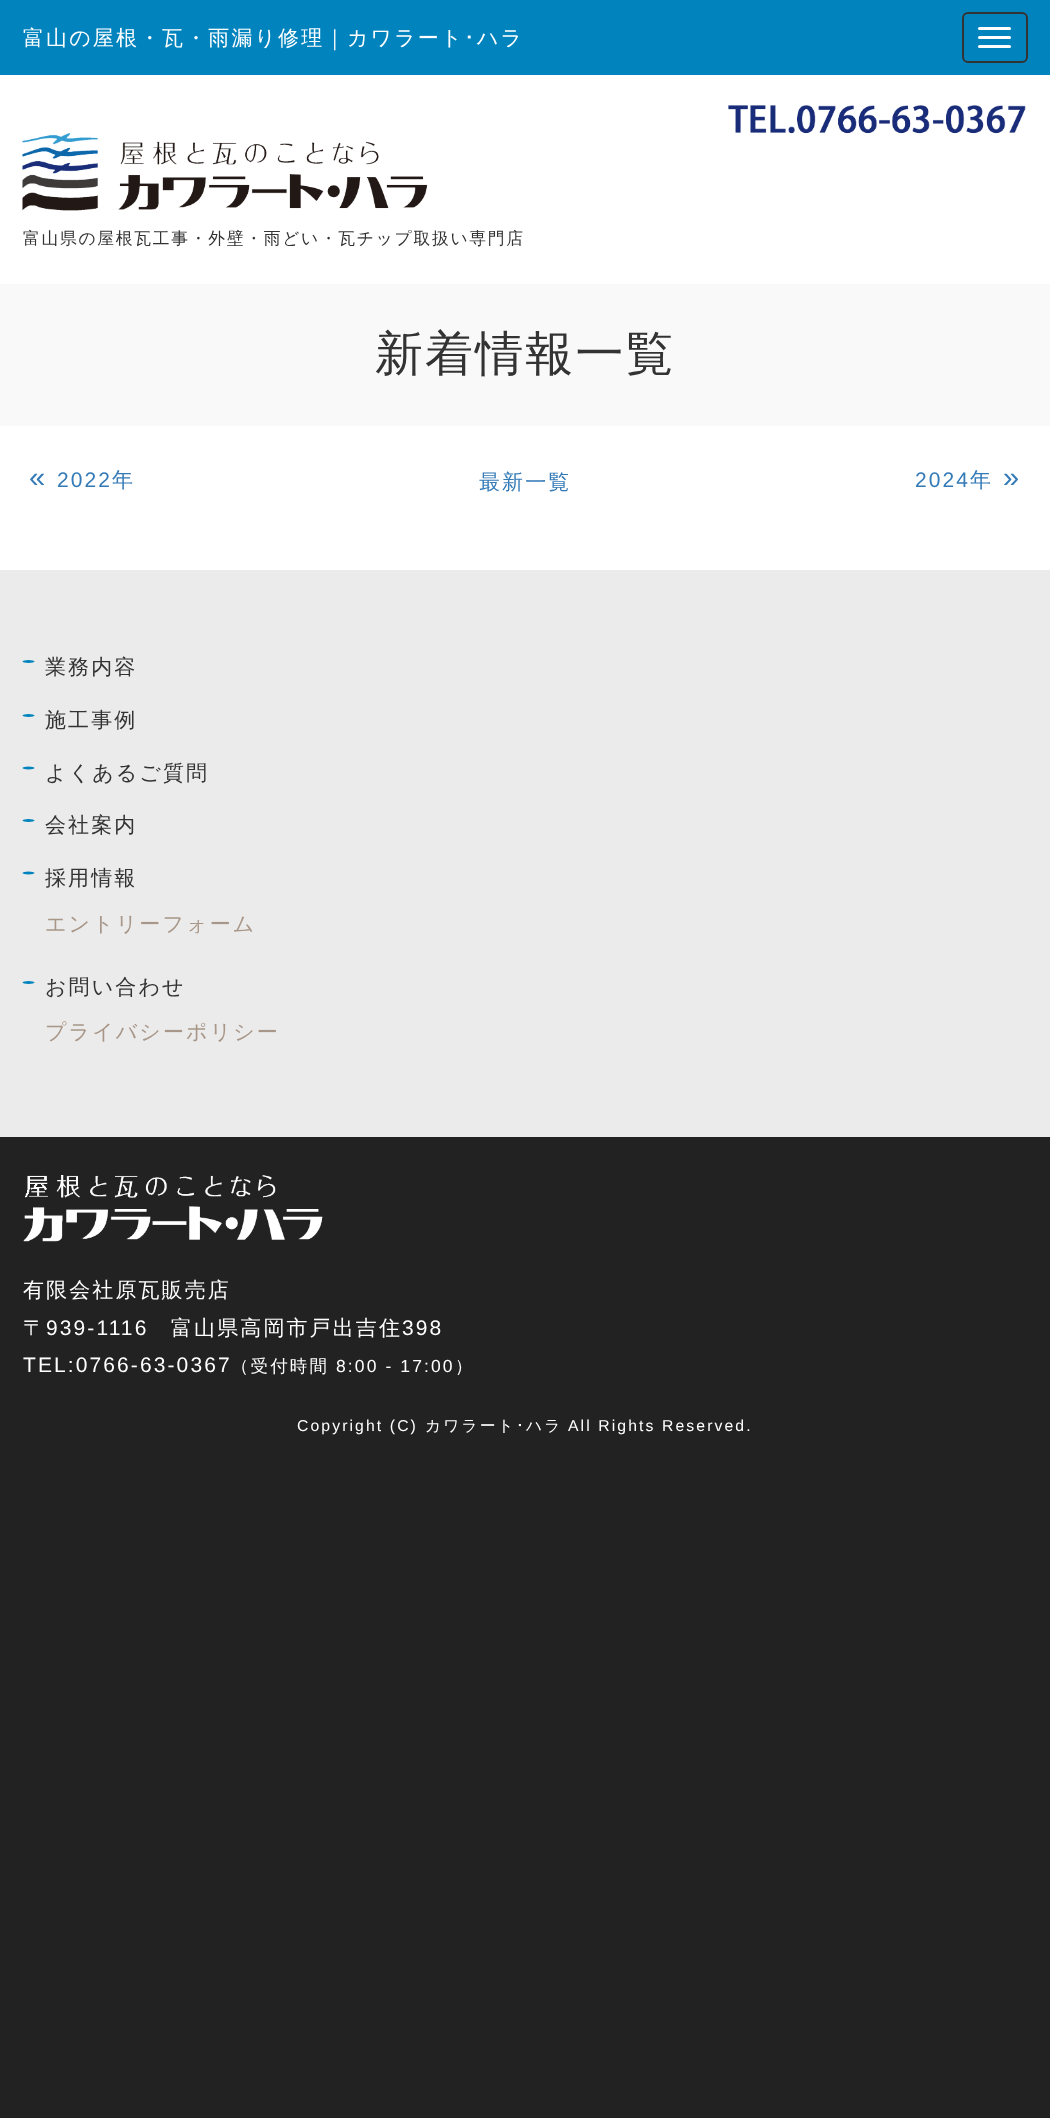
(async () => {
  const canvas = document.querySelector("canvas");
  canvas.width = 1050;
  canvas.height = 2118;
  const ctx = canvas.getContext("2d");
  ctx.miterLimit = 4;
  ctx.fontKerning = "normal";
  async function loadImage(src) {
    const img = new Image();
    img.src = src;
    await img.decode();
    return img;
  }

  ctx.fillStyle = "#222222";
  ctx.fillRect(0, 0, 1050, 2118);
  ctx.fillStyle = "#ffffff";
  ctx.fillRect(0, 75, 1050, 209);
  ctx.fillStyle = "#0183be";
  ctx.fillRect(0, 0, 1050, 75);
  ctx.beginPath();
  ctx.roundRect(963, 13, 64, 49, 5);
  ctx.strokeStyle = "#333333";
  ctx.lineWidth = 2;
  ctx.stroke();
  ctx.fillStyle = "#ffffff";
  ctx.beginPath();
  ctx.roundRect(978, 27, 33, 3, 1.5);
  ctx.fill();
  ctx.beginPath();
  ctx.roundRect(978, 36, 33, 3, 1.5);
  ctx.fill();
  ctx.beginPath();
  ctx.roundRect(978, 45, 33, 3, 1.5);
  ctx.fill();
  ctx.drawImage(await loadImage("img/1.png"), 728, 105, 298, 29);
  ctx.drawImage(await loadImage("img/2.png"), 22, 133, 406, 78);
  for (const [x, y, w, h, color] of [
    [0, 426, 1050, 144, "#ffffff"],
    [0, 284, 1050, 142, "#f9f9f9"],
    [0, 570, 1050, 567, "#ebebeb"],
  ]) {
    ctx.fillStyle = color;
    ctx.fillRect(x, y, w, h);
  }
  ctx.fillStyle = "#0183be";
  ctx.beginPath();
  ctx.ellipse(28.5, 661.5, 6, 1.5, 0, 0, Math.PI * 2);
  ctx.fill();
  ctx.beginPath();
  ctx.ellipse(28.5, 715.5, 6, 1.5, 0, 0, Math.PI * 2);
  ctx.fill();
  ctx.beginPath();
  ctx.ellipse(28.5, 768, 6, 1.5, 0, 0, Math.PI * 2);
  ctx.fill();
  ctx.beginPath();
  ctx.ellipse(28.5, 820.5, 6, 1.5, 0, 0, Math.PI * 2);
  ctx.fill();
  ctx.beginPath();
  ctx.ellipse(28.5, 873, 6, 1.5, 0, 0, Math.PI * 2);
  ctx.fill();
  ctx.beginPath();
  ctx.ellipse(28.5, 982.5, 6, 1.5, 0, 0, Math.PI * 2);
  ctx.fill();
  ctx.drawImage(await loadImage("img/3.png"), 23, 1175, 300, 67);
  ctx.letterSpacing = "2.1px";
  ctx.font = "500 21px WenQuanYi Zen Hei";
  ctx.fillStyle = "#ffffff";
  ctx.fillText("富山の屋根・瓦・雨漏り修理｜カワラート", 23, 45);
  ctx.font = "21px IPAPGothic";
  ctx.fillText("･", 464, 45);
  ctx.font = "500 21px WenQuanYi Zen Hei";
  ctx.fillText("ハラ", 477, 45);
  ctx.letterSpacing = "1.7px";
  ctx.font = "500 16.8px WenQuanYi Zen Hei";
  ctx.fillStyle = "#333333";
  ctx.fillText("富山県の屋根瓦工事・外壁・雨どい・瓦チップ取扱い専門店", 23, 244);
  ctx.letterSpacing = "2.1px";
  ctx.font = "500 48px WenQuanYi Zen Hei";
  ctx.fillText("新着情報一覧", 375, 370);
  ctx.font = "29px Liberation Sans";
  ctx.fillStyle = "#337ab7";
  ctx.fillText("«", 29, 487);
  ctx.font = "21px Liberation Sans";
  ctx.fillText("2022", 57, 487);
  ctx.font = "500 21px WenQuanYi Zen Hei";
  ctx.fillText("年", 112, 487);
  ctx.fillText("最新一覧", 479, 489);
  ctx.font = "21px Liberation Sans";
  ctx.fillText("2024", 915, 487);
  ctx.font = "500 21px WenQuanYi Zen Hei";
  ctx.fillText("年", 970, 487);
  ctx.font = "29px Liberation Sans";
  ctx.fillText("»", 1003, 487);
  ctx.font = "500 21px WenQuanYi Zen Hei";
  ctx.fillStyle = "#333333";
  for (const [text, x, y] of [
    ["業務内容", 45, 674],
    ["施工事例", 45, 727],
    ["よくあるご質問", 45, 780],
    ["会社案内", 45, 832],
    ["採用情報", 45, 885],
  ]) {
    ctx.fillText(text, x, y);
  }
  ctx.fillStyle = "#a89688";
  ctx.fillText("エントリーフォーム", 45, 931);
  ctx.fillStyle = "#333333";
  ctx.fillText("お問い合わせ", 45, 994);
  ctx.fillStyle = "#a89688";
  ctx.fillText("プライバシーポリシー", 45, 1039);
  ctx.fillStyle = "#ffffff";
  ctx.fillText("有限会社原瓦販売店", 23, 1297);
  ctx.fillText("〒", 23, 1335);
  ctx.font = "21px Liberation Sans";
  ctx.fillText("939-1116", 46, 1335);
  ctx.font = "500 21px WenQuanYi Zen Hei";
  ctx.fillText("富山県高岡市戸出吉住", 171, 1335);
  ctx.font = "21px Liberation Sans";
  ctx.fillText("398", 402, 1335);
  ctx.fillText("TEL:0766-63-0367", 23, 1372);
  ctx.font = "500 17.5px WenQuanYi Zen Hei";
  ctx.fillText("（受付時間", 231, 1372);
  ctx.font = "17.5px Liberation Sans";
  ctx.fillText("8:00 - 17:00", 336, 1372);
  ctx.font = "500 17.5px WenQuanYi Zen Hei";
  ctx.fillText("）", 455, 1372);
  ctx.font = "15.75px Liberation Sans";
  ctx.fillText("Copyright (C)", 297, 1431);
  ctx.font = "500 15.75px WenQuanYi Zen Hei";
  ctx.fillText("カワラート", 425, 1431);
  ctx.font = "15.75px IPAPGothic";
  ctx.fillText("･", 516, 1431);
  ctx.font = "500 15.75px WenQuanYi Zen Hei";
  ctx.fillText("ハラ", 526, 1431);
  ctx.font = "15.75px Liberation Sans";
  ctx.fillText("All Rights Reserved.", 568, 1431);
})();
